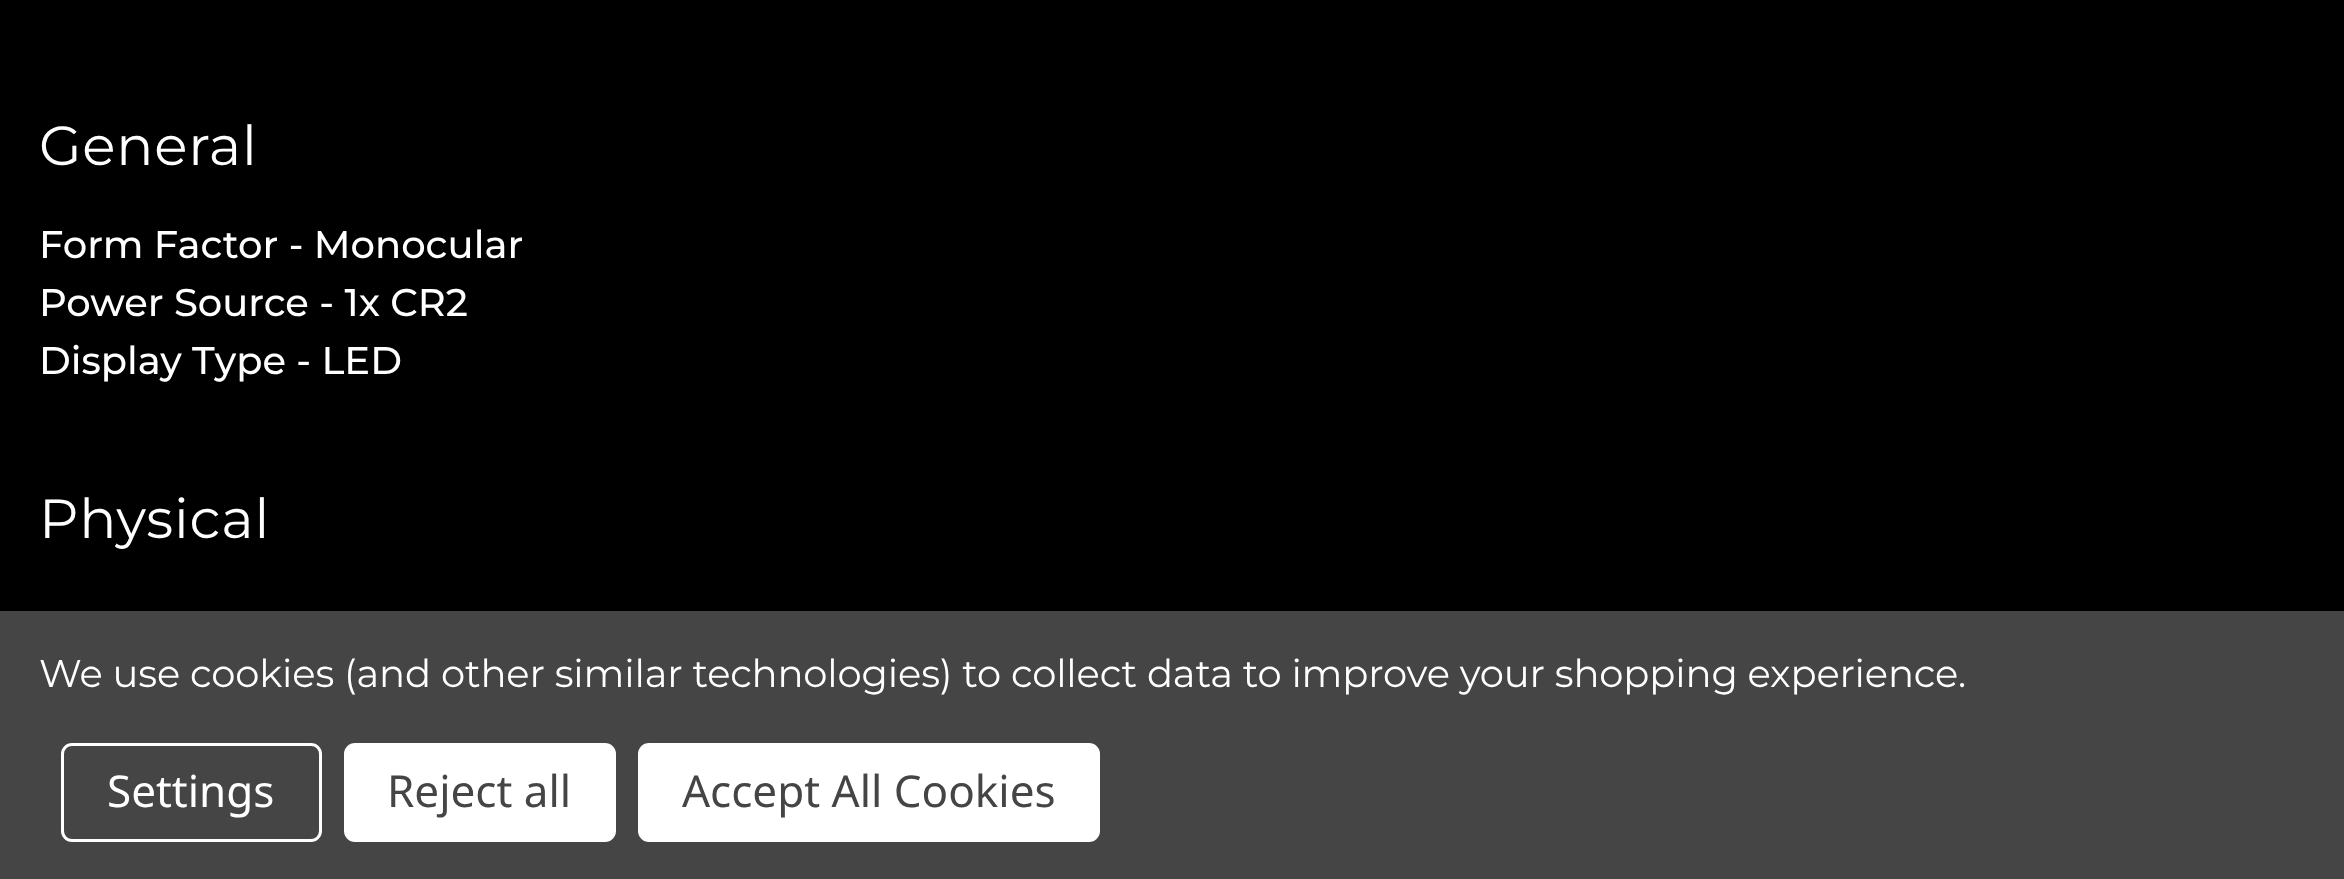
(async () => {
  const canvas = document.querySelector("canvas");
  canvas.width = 2344;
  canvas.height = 879;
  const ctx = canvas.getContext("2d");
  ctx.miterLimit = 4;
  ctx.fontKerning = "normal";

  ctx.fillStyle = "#000000";
  ctx.fillRect(0, 0, 2344, 879);
  ctx.fillStyle = "#454545";
  ctx.fillRect(0, 611, 2344, 268);
  ctx.beginPath();
  ctx.roundRect(62.5, 744.5, 258, 96, 9.5);
  ctx.strokeStyle = "#ffffff";
  ctx.lineWidth = 3;
  ctx.stroke();
  ctx.fillStyle = "#ffffff";
  ctx.beginPath();
  ctx.roundRect(344, 743, 272, 99, 11);
  ctx.fill();
  ctx.beginPath();
  ctx.roundRect(638, 743, 462, 99, 11);
  ctx.fill();
  ctx.letterSpacing = "0.75px";
  ctx.font = "55px Montserrat";
  ctx.fillText("General", 39, 165);
  ctx.letterSpacing = "0px";
  ctx.font = "500 38.5px Montserrat";
  for (const [text, x, y] of [
    ["Form Factor - Monocular", 39, 258],
    ["Power Source - 1x CR2", 39, 316],
    ["Display Type - LED", 39, 374],
  ]) {
    ctx.fillText(text, x, y);
  }
  ctx.letterSpacing = "0.75px";
  ctx.font = "55px Montserrat";
  ctx.fillText("Physical", 39, 538);
  ctx.letterSpacing = "-0.14px";
  ctx.font = "38.5px Montserrat";
  ctx.fillText("We use cookies (and other similar technologies) to collect data to improve your shopping experience.", 39, 687);
  ctx.letterSpacing = "0px";
  ctx.font = "44px Noto Sans";
  ctx.fillText("Settings", 107, 807);
  ctx.fillStyle = "#454545";
  ctx.fillText("Reject all", 387, 807);
  ctx.fillText("Accept All Cookies", 682, 807);
})();
